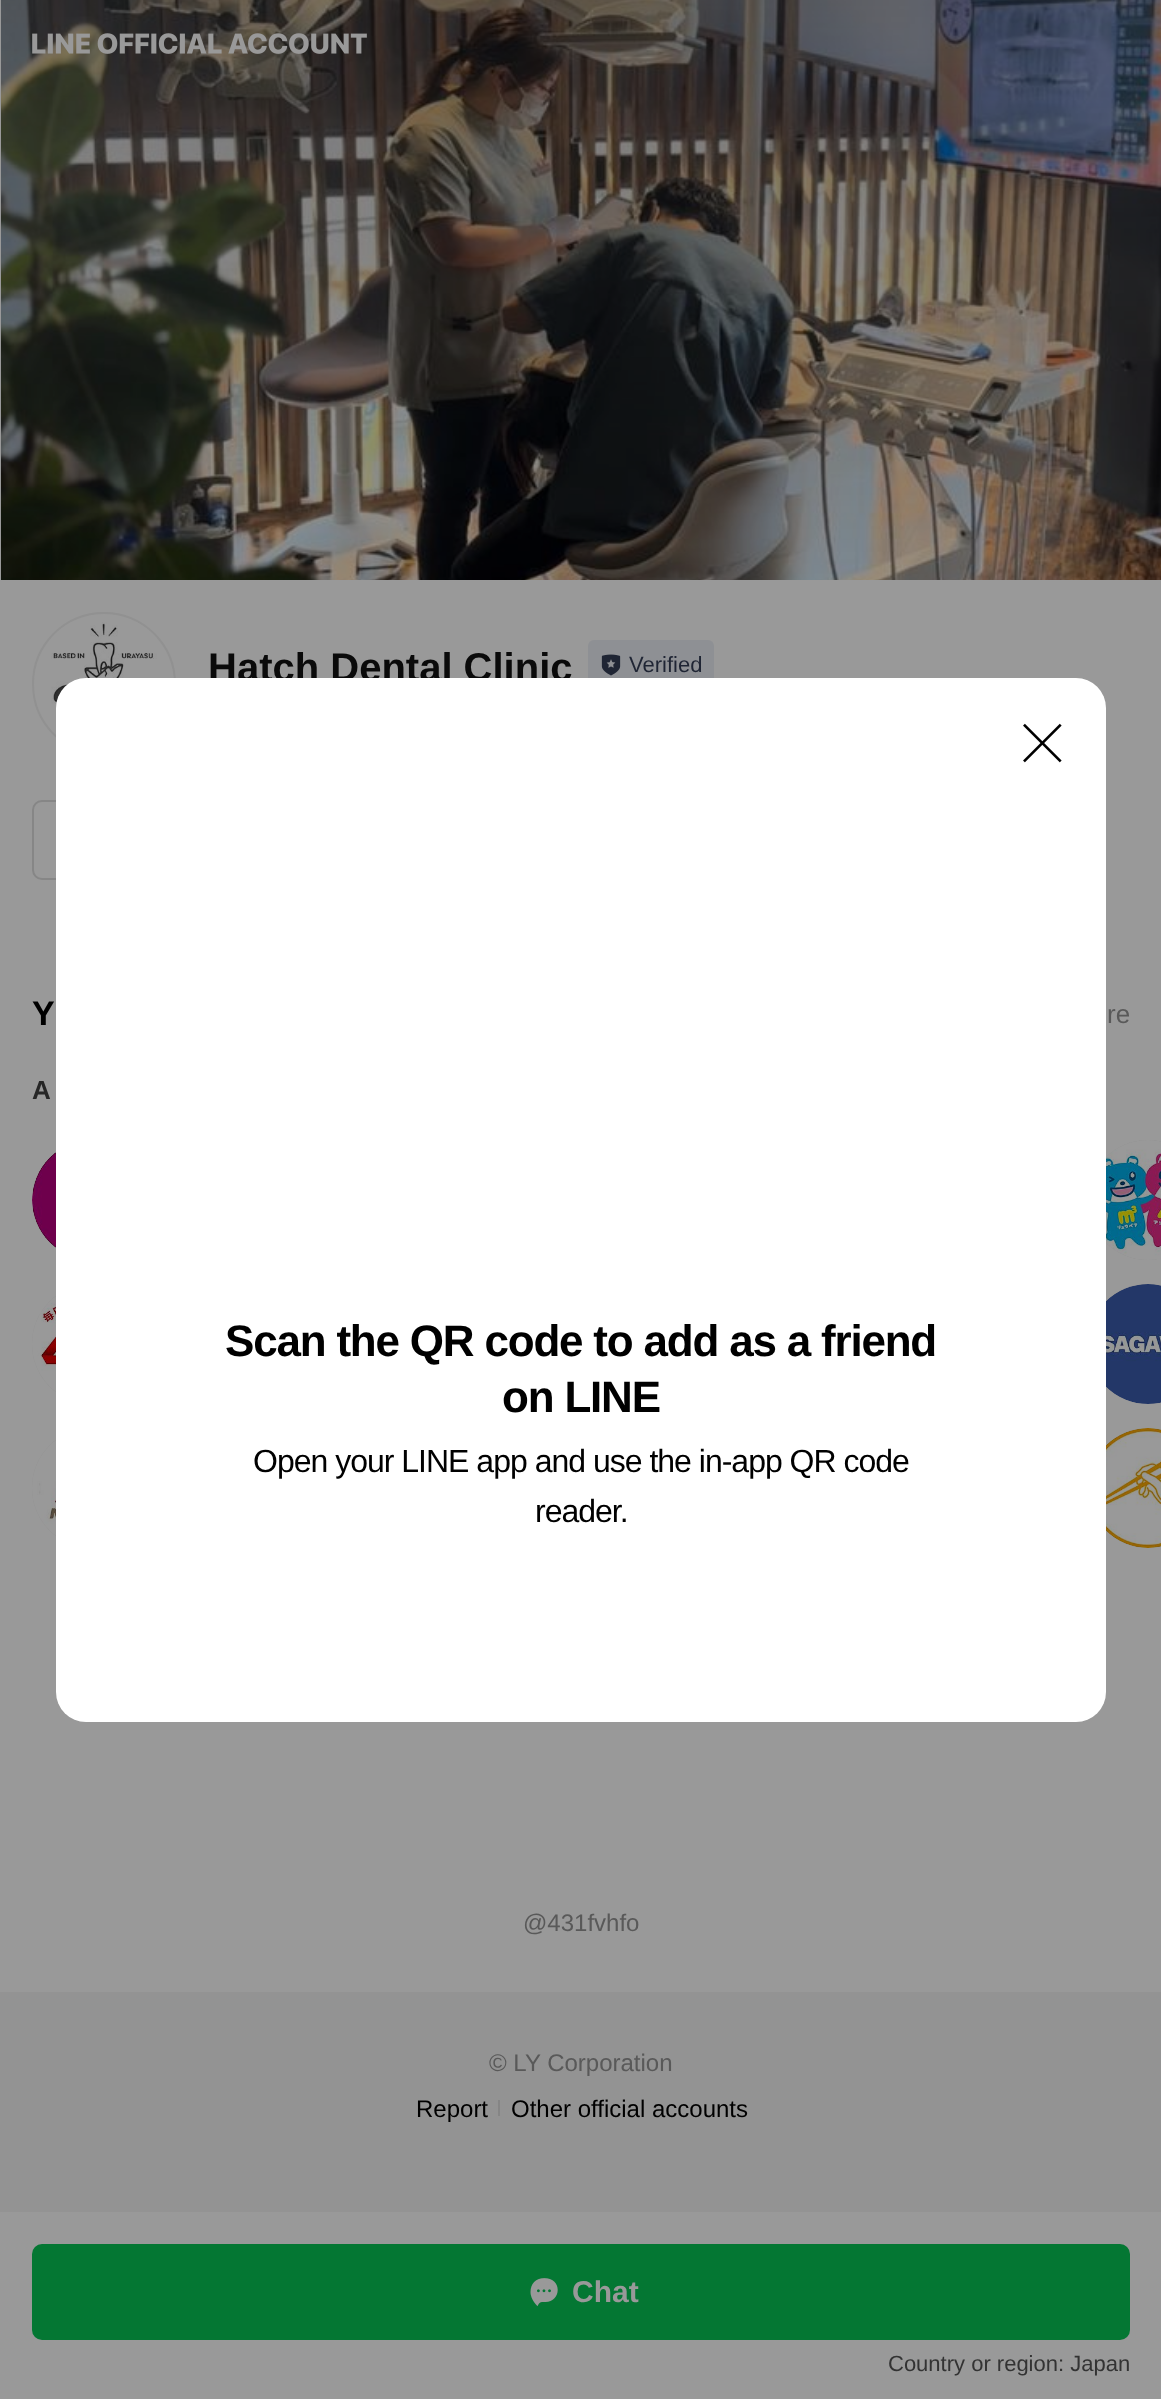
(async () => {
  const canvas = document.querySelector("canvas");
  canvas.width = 1161;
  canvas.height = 2399;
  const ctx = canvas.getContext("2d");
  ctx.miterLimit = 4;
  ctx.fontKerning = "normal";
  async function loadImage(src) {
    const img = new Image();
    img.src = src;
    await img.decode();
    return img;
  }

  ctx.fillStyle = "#999999";
  ctx.fillRect(0, 0, 1161, 2399);
  ctx.drawImage(await loadImage("img/2.png"), 1, 0, 1160, 580);
  ctx.drawImage(await loadImage("img/1.png"), 32, 33, 335, 21);
  ctx.beginPath();
  ctx.arc(104, 684, 71, 0, Math.PI * 2);
  ctx.strokeStyle = "#919191";
  ctx.lineWidth = 2;
  ctx.stroke();
  ctx.drawImage(await loadImage("img/3.png"), 51, 622, 106, 110);
  ctx.fillStyle = "#8e9094";
  ctx.beginPath();
  ctx.roundRect(588, 640, 126, 48, 6);
  ctx.fill();
  ctx.drawImage(await loadImage("img/4.png"), 601, 654, 20, 22);
  ctx.beginPath();
  ctx.roundRect(33, 801, 164, 78, 9);
  ctx.strokeStyle = "#868686";
  ctx.stroke();
  ctx.fillStyle = "#939393";
  ctx.beginPath();
  ctx.arc(92, 1200, 60, 0, Math.PI * 2);
  ctx.fill();
  ctx.drawImage(await loadImage("img/5.png"), 32, 1152, 24, 96);
  ctx.beginPath();
  ctx.arc(92, 1344, 60, 0, Math.PI * 2);
  ctx.fill();
  ctx.drawImage(await loadImage("img/6.png"), 32, 1296, 24, 96);
  ctx.beginPath();
  ctx.arc(92, 1488, 60, 0, Math.PI * 2);
  ctx.fill();
  ctx.drawImage(await loadImage("img/7.png"), 32, 1440, 24, 96);
  ctx.beginPath();
  ctx.arc(1148, 1200, 60, 0, Math.PI * 2);
  ctx.fill();
  ctx.drawImage(await loadImage("img/8.png"), 1106, 1140, 55, 120);
  ctx.beginPath();
  ctx.arc(1148, 1344, 60, 0, Math.PI * 2);
  ctx.fill();
  ctx.drawImage(await loadImage("img/9.png"), 1106, 1284, 55, 120);
  ctx.beginPath();
  ctx.arc(1148, 1488, 60, 0, Math.PI * 2);
  ctx.fill();
  ctx.drawImage(await loadImage("img/10.png"), 1106, 1428, 55, 120);
  ctx.fillRect(0, 1992, 1161, 220);
  ctx.fillStyle = "#858585";
  ctx.fillRect(498, 2100, 2, 16);
  ctx.fillStyle = "#047733";
  ctx.beginPath();
  ctx.roundRect(32, 2244, 1098, 96, 10);
  ctx.fill();
  ctx.drawImage(await loadImage("img/11.png"), 530, 2278, 28, 29);
  ctx.font = "bold 40px Liberation Sans";
  ctx.fillStyle = "#0a0a0a";
  ctx.fillText("Hatch Dental Clinic", 208, 681);
  ctx.font = "22px Liberation Sans";
  ctx.fillStyle = "#1f2534";
  ctx.fillText("Verified", 629, 672);
  ctx.letterSpacing = "-1px";
  ctx.font = "bold 34px Liberation Sans";
  ctx.fillStyle = "#000000";
  ctx.fillText("Y", 32, 1025);
  ctx.letterSpacing = "0px";
  ctx.font = "26px Liberation Sans";
  ctx.fillStyle = "#595959";
  ctx.fillText("re", 1107, 1023);
  ctx.font = "bold 26px Liberation Sans";
  ctx.fillStyle = "#262626";
  ctx.fillText("A", 32, 1099);
  ctx.font = "24px Liberation Sans";
  ctx.fillStyle = "#595959";
  ctx.fillText("@431fvhfo", 523, 1931);
  ctx.fillText("© LY Corporation", 489, 2071);
  ctx.fillStyle = "#000000";
  ctx.fillText("Report", 416, 2117);
  ctx.fillText("Other official accounts", 511, 2117);
  ctx.font = "bold 30px Liberation Sans";
  ctx.fillStyle = "#999999";
  ctx.fillText("Chat", 572, 2302);
  ctx.font = "22px Liberation Sans";
  ctx.fillStyle = "#333333";
  ctx.fillText("Country or region: Japan", 888, 2371);
  ctx.fillStyle = "#ffffff";
  ctx.beginPath();
  ctx.roundRect(56, 678, 1050, 1044, 30);
  ctx.fill();
  ctx.drawImage(await loadImage("img/12.png"), 1023, 723, 39, 40);
  ctx.letterSpacing = "-1.2px";
  ctx.font = "bold 44px Liberation Sans";
  ctx.fillStyle = "#000000";
  ctx.fillText("Scan the QR code to add as a friend", 225, 1356);
  ctx.fillText("on LINE", 502, 1412);
  ctx.letterSpacing = "-1px";
  ctx.font = "32px Liberation Sans";
  ctx.fillText("Open your LINE app and use the in-app QR code", 253, 1472);
  ctx.fillText("reader.", 535, 1522);
})();
